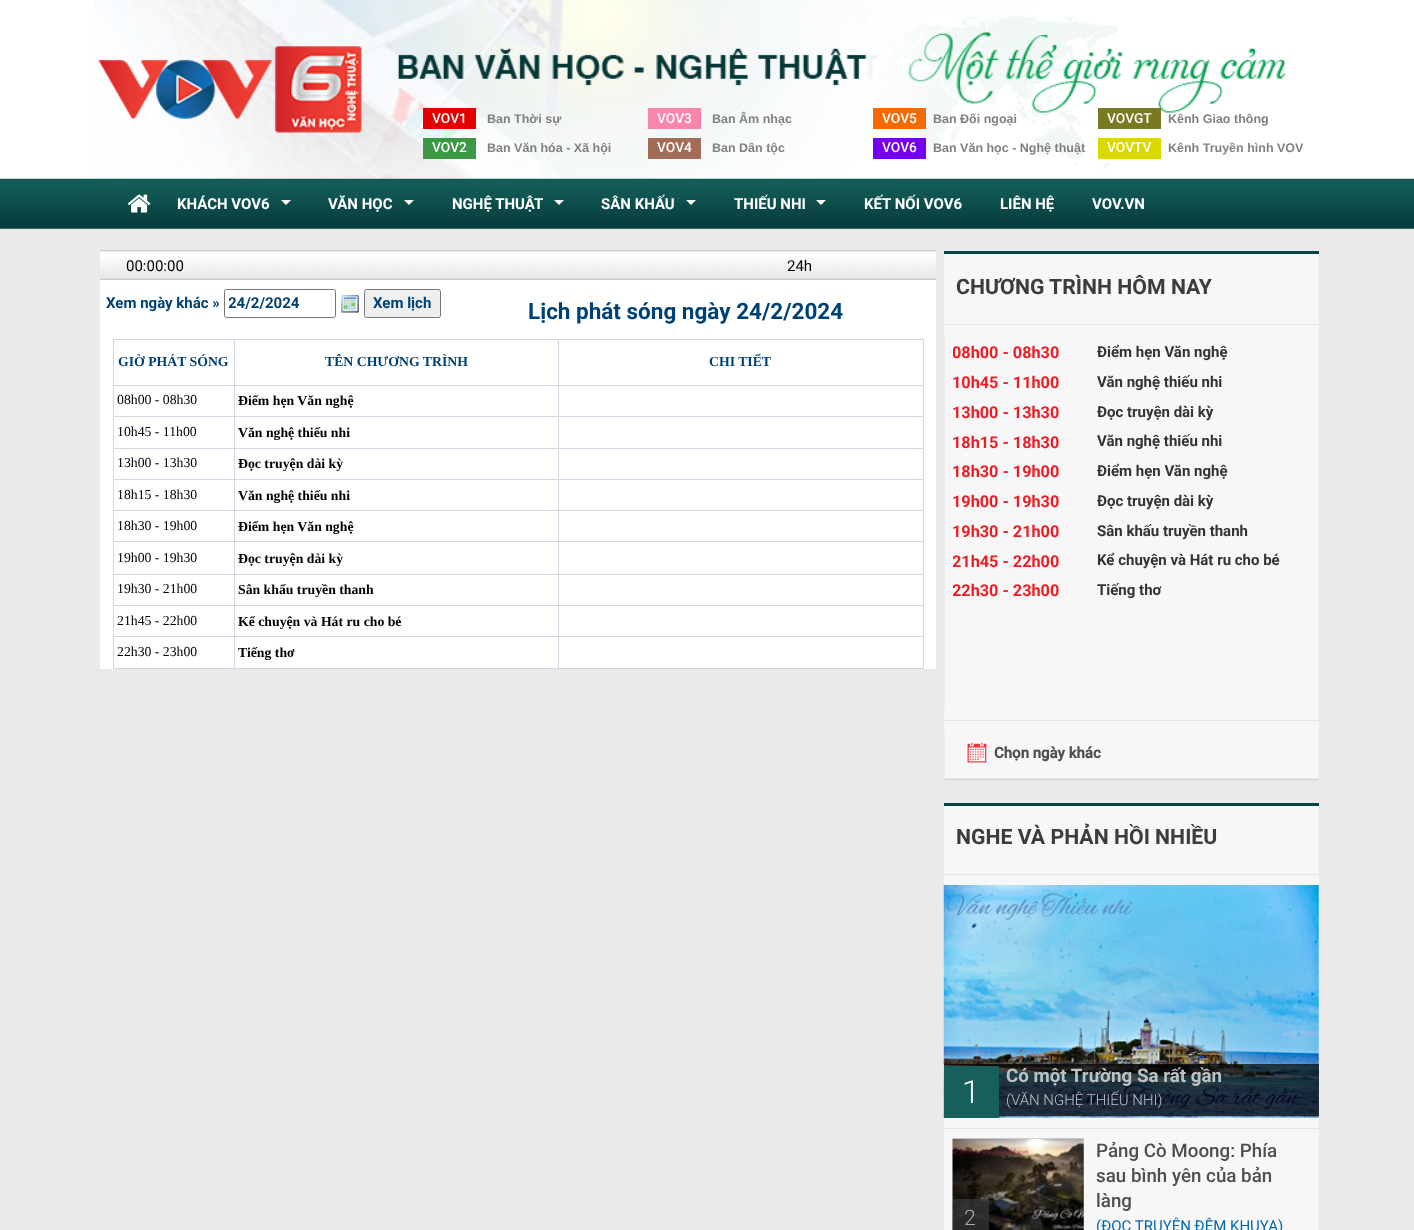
(async () => {
  const canvas = document.querySelector("canvas");
  canvas.width = 1414;
  canvas.height = 1230;
  const ctx = canvas.getContext("2d");
  ctx.miterLimit = 4;
  ctx.fontKerning = "normal";
  async function loadImage(src) {
    const img = new Image();
    img.src = src;
    await img.decode();
    return img;
  }
  let path;

  ctx.fillStyle = "#eaeaea";
  ctx.fillRect(0, 0, 1414, 1230);
  ctx.fillStyle = "#ffffff";
  ctx.fillRect(0, 0, 1414, 179);
  ctx.drawImage(await loadImage("img/1.png"), 94, 0, 1192, 179);
  for (const [x, y, w, h, color] of [
    [423, 108, 53, 21, "#e20001"],
    [423, 138, 53, 21, "#3b9945"],
    [648, 108, 53, 21, "#f984ae"],
    [648, 138, 53, 21, "#a16d57"],
    [873, 108, 53, 21, "#f46900"],
    [873, 138, 53, 21, "#7300f3"],
    [1098, 108, 63, 21, "#797921"],
    [1098, 138, 63, 21, "#d9d900"],
  ]) {
    ctx.fillStyle = color;
    ctx.fillRect(x, y, w, h);
  }
  ctx.drawImage(await loadImage("img/2.png"), 0, 178, 1414, 51);
  ctx.drawImage(await loadImage("img/3.png"), 127, 194, 24, 19);
  ctx.fillStyle = "#ffffff";
  path = new Path2D("M281 200H291L286 205Z");
  ctx.fill(path);
  path = new Path2D("M404 200H414L409 205Z");
  ctx.fill(path);
  path = new Path2D("M554 200H564L559 205Z");
  ctx.fill(path);
  path = new Path2D("M686 200H696L691 205Z");
  ctx.fill(path);
  path = new Path2D("M816 200H826L821 205Z");
  ctx.fill(path);
  ctx.drawImage(await loadImage("img/4.png"), 100, 250, 837, 30);
  ctx.fillRect(100, 280, 836, 389);
  ctx.beginPath();
  ctx.roundRect(224.5, 289.5, 111, 28, 2);
  ctx.strokeStyle = "#767676";
  ctx.stroke();
  ctx.drawImage(await loadImage("img/5.png"), 341, 294, 18, 19);
  ctx.fillStyle = "#efefef";
  ctx.beginPath();
  ctx.roundRect(364.5, 289.5, 76, 28, 2);
  ctx.fill();
  ctx.stroke();
  for (const [x, y, w, h, color] of [
    [113, 339, 811, 1, "#d0d7e5"],
    [923, 339, 1, 330, "#d0d7e5"],
    [113, 668, 811, 1, "#d0d7e5"],
    [113, 339, 1, 330, "#d0d7e5"],
    [558, 385, 366, 1, "#d0d7e5"],
    [558, 416, 366, 1, "#d0d7e5"],
    [558, 448, 366, 1, "#d0d7e5"],
    [558, 479, 366, 1, "#d0d7e5"],
    [558, 510, 366, 1, "#d0d7e5"],
    [558, 541, 366, 1, "#d0d7e5"],
    [558, 574, 366, 1, "#d0d7e5"],
    [558, 605, 366, 1, "#d0d7e5"],
    [558, 636, 366, 1, "#d0d7e5"],
    [558, 636, 1, 33, "#d0d7e5"],
    [234, 636, 325, 1, "#d0d7e5"],
    [558, 605, 1, 33, "#d0d7e5"],
    [234, 605, 325, 1, "#d0d7e5"],
    [558, 574, 1, 32, "#d0d7e5"],
    [234, 574, 325, 1, "#d0d7e5"],
    [558, 541, 1, 34, "#d0d7e5"],
    [234, 541, 325, 1, "#d0d7e5"],
    [558, 510, 1, 33, "#d0d7e5"],
    [234, 510, 325, 1, "#d0d7e5"],
    [558, 479, 1, 32, "#d0d7e5"],
    [234, 479, 325, 1, "#d0d7e5"],
    [558, 448, 1, 32, "#d0d7e5"],
    [234, 448, 325, 1, "#d0d7e5"],
    [558, 416, 1, 33, "#d0d7e5"],
    [234, 416, 325, 1, "#d0d7e5"],
    [558, 385, 1, 33, "#d0d7e5"],
    [234, 385, 325, 1, "#d0d7e5"],
    [234, 636, 1, 33, "#d0d7e5"],
    [113, 636, 122, 1, "#d0d7e5"],
    [234, 605, 1, 33, "#d0d7e5"],
    [113, 605, 122, 1, "#d0d7e5"],
    [234, 574, 1, 32, "#d0d7e5"],
    [113, 574, 122, 1, "#d0d7e5"],
    [234, 541, 1, 34, "#d0d7e5"],
    [113, 541, 122, 1, "#d0d7e5"],
    [234, 510, 1, 33, "#d0d7e5"],
    [113, 510, 122, 1, "#d0d7e5"],
    [234, 479, 1, 32, "#d0d7e5"],
    [113, 479, 122, 1, "#d0d7e5"],
    [234, 448, 1, 32, "#d0d7e5"],
    [113, 448, 122, 1, "#d0d7e5"],
    [234, 416, 1, 33, "#d0d7e5"],
    [113, 416, 122, 1, "#d0d7e5"],
    [234, 385, 1, 33, "#d0d7e5"],
    [113, 385, 122, 1, "#d0d7e5"],
    [234, 339, 1, 47, "#d0d7e5"],
    [558, 339, 1, 47, "#d0d7e5"],
    [944, 254, 375, 524, "#f7f7f7"],
    [944, 779, 375, 1, "#d0d0d0"],
    [944, 251, 375, 3, "#054343"],
    [944, 324, 375, 1, "#e5e5e5"],
    [1318, 335, 1, 375, "#ededed"],
    [944, 335, 1, 375, "#ededed"],
    [944, 720, 375, 1, "#e5e5e5"],
    [1318, 731, 1, 48, "#ededed"],
    [944, 778, 375, 1, "#ededed"],
    [944, 731, 1, 48, "#ededed"],
  ]) {
    ctx.fillStyle = color;
    ctx.fillRect(x, y, w, h);
  }
  ctx.drawImage(await loadImage("img/6.png"), 966, 741, 22, 23);
  for (const [x, y, w, h, color] of [
    [944, 806, 375, 424, "#f7f7f7"],
    [944, 803, 375, 3, "#054343"],
    [944, 874, 375, 1, "#e5e5e5"],
  ]) {
    ctx.fillStyle = color;
    ctx.fillRect(x, y, w, h);
  }
  ctx.drawImage(await loadImage("img/7.png"), 943, 885, 376, 233);
  for (const [x, y, w, h, color] of [
    [944, 1064, 375, 52, "rgba(0, 0, 0, 0.7)"],
    [944, 1066, 55, 52, "#175f5b"],
    [944, 1128, 375, 1, "#e5e5e5"],
  ]) {
    ctx.fillStyle = color;
    ctx.fillRect(x, y, w, h);
  }
  ctx.drawImage(await loadImage("img/8.png"), 952, 1138, 132, 92);
  ctx.fillStyle = "rgba(51, 51, 51, 0.8)";
  ctx.fillRect(953, 1199, 36, 31);
  ctx.font = "500 13.75px Roboto";
  ctx.fillStyle = "#ffffff";
  ctx.fillText("VOV1", 432, 123);
  ctx.font = "bold 12.5px Liberation Sans";
  ctx.fillStyle = "#808080";
  ctx.fillText("Ban Thời sự", 487, 123);
  ctx.font = "500 13.75px Roboto";
  ctx.fillStyle = "#ffffff";
  ctx.fillText("VOV2", 432, 152);
  ctx.font = "bold 12.5px Liberation Sans";
  ctx.fillStyle = "#808080";
  ctx.fillText("Ban Văn hóa - Xã hội", 487, 152);
  ctx.font = "500 13.75px Roboto";
  ctx.fillStyle = "#ffffff";
  ctx.fillText("VOV3", 657, 123);
  ctx.font = "bold 12.5px Liberation Sans";
  ctx.fillStyle = "#808080";
  ctx.fillText("Ban Âm nhạc", 712, 123);
  ctx.font = "500 13.75px Roboto";
  ctx.fillStyle = "#ffffff";
  ctx.fillText("VOV4", 657, 152);
  ctx.font = "bold 12.5px Liberation Sans";
  ctx.fillStyle = "#808080";
  ctx.fillText("Ban Dân tộc", 712, 152);
  ctx.font = "500 13.75px Roboto";
  ctx.fillStyle = "#ffffff";
  ctx.fillText("VOV5", 882, 123);
  ctx.font = "bold 12.5px Liberation Sans";
  ctx.fillStyle = "#808080";
  ctx.fillText("Ban Đối ngoại", 933, 123);
  ctx.font = "500 13.75px Roboto";
  ctx.fillStyle = "#ffffff";
  ctx.fillText("VOV6", 882, 152);
  ctx.font = "bold 12.5px Liberation Sans";
  ctx.fillStyle = "#808080";
  ctx.fillText("Ban Văn học - Nghệ thuật", 933, 152);
  ctx.font = "500 13.75px Roboto";
  ctx.fillStyle = "#ffffff";
  ctx.fillText("VOVGT", 1107, 123);
  ctx.font = "bold 12.5px Liberation Sans";
  ctx.fillStyle = "#808080";
  ctx.fillText("Kênh Giao thông", 1168, 123);
  ctx.font = "500 13.75px Roboto";
  ctx.fillStyle = "#ffffff";
  ctx.fillText("VOVTV", 1107, 152);
  ctx.font = "bold 12.5px Liberation Sans";
  ctx.fillStyle = "#808080";
  ctx.fillText("Kênh Truyền hình VOV", 1168, 152);
  ctx.font = "bold 15px 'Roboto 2'";
  ctx.fillStyle = "#ffffff";
  for (const [text, x, y] of [
    ["KHÁCH VOV6", 177, 209],
    ["VĂN HỌC", 328, 209],
    ["NGHỆ THUẬT", 452, 209],
    ["SÂN KHẤU", 601, 209],
    ["THIẾU NHI", 734, 209],
    ["KẾT NỐI VOV6", 864, 209],
    ["LIÊN HỆ", 1000, 209],
    ["VOV.VN", 1092, 209],
  ]) {
    ctx.fillText(text, x, y);
  }
  ctx.font = "15px Roboto";
  ctx.fillStyle = "#000000";
  ctx.fillText("00:00:00", 126, 271);
  ctx.fillText("24h", 787, 271);
  ctx.font = "bold 15px Roboto";
  ctx.fillStyle = "#004175";
  ctx.fillText("Xem ngày khác »", 106, 308);
  ctx.save();
  ctx.beginPath();
  ctx.rect(229, 293, 102, 21);
  ctx.clip();
  ctx.fillText("24/2/2024", 228, 308);
  ctx.restore();
  ctx.fillText("Xem lịch", 373, 308);
  ctx.font = "bold 22.5px Roboto";
  ctx.fillText("Lịch phát sóng ngày 24/2/2024", 528, 319);
  ctx.font = "bold 13.75px Liberation Serif";
  for (const [text, x, y] of [
    ["GIỜ PHÁT SÓNG", 118, 366],
    ["TÊN CHƯƠNG TRÌNH", 325, 366],
    ["CHI TIẾT", 709, 366],
  ]) {
    ctx.fillText(text, x, y);
  }
  ctx.font = "13.75px Liberation Serif";
  ctx.fillStyle = "#000000";
  ctx.fillText("08h00 - 08h30", 117, 404);
  ctx.font = "bold 13.75px Liberation Serif";
  ctx.fillText("Điểm hẹn Văn nghệ", 238, 405);
  ctx.font = "13.75px Liberation Serif";
  ctx.fillText("10h45 - 11h00", 117, 436);
  ctx.font = "bold 13.75px Liberation Serif";
  ctx.fillText("Văn nghệ thiếu nhi", 238, 437);
  ctx.font = "13.75px Liberation Serif";
  ctx.fillText("13h00 - 13h30", 117, 467);
  ctx.font = "bold 13.75px Liberation Serif";
  ctx.fillText("Đọc truyện dài kỳ", 238, 468);
  ctx.font = "13.75px Liberation Serif";
  ctx.fillText("18h15 - 18h30", 117, 499);
  ctx.font = "bold 13.75px Liberation Serif";
  ctx.fillText("Văn nghệ thiếu nhi", 238, 500);
  ctx.font = "13.75px Liberation Serif";
  ctx.fillText("18h30 - 19h00", 117, 530);
  ctx.font = "bold 13.75px Liberation Serif";
  ctx.fillText("Điểm hẹn Văn nghệ", 238, 531);
  ctx.font = "13.75px Liberation Serif";
  ctx.fillText("19h00 - 19h30", 117, 562);
  ctx.font = "bold 13.75px Liberation Serif";
  ctx.fillText("Đọc truyện dài kỳ", 238, 563);
  ctx.font = "13.75px Liberation Serif";
  ctx.fillText("19h30 - 21h00", 117, 593);
  ctx.font = "bold 13.75px Liberation Serif";
  ctx.fillText("Sân khấu truyền thanh", 238, 594);
  ctx.font = "13.75px Liberation Serif";
  ctx.fillText("21h45 - 22h00", 117, 625);
  ctx.font = "bold 13.75px Liberation Serif";
  ctx.fillText("Kể chuyện và Hát ru cho bé", 238, 626);
  ctx.font = "13.75px Liberation Serif";
  ctx.fillText("22h30 - 23h00", 117, 656);
  ctx.font = "bold 13.75px Liberation Serif";
  ctx.fillText("Tiếng thơ", 238, 657);
  ctx.font = "bold 21.25px 'Roboto 2'";
  ctx.fillStyle = "#3c3c3c";
  ctx.fillText("CHƯƠNG TRÌNH HÔM NAY", 956, 294);
  ctx.save();
  ctx.beginPath();
  ctx.rect(953, 343, 357, 267);
  ctx.clip();
  ctx.font = "bold 16.25px Roboto";
  ctx.fillStyle = "#ed1c24";
  ctx.fillText("08h00 - 08h30", 952, 358);
  ctx.restore();
  ctx.font = "bold 15px Roboto";
  ctx.fillStyle = "#333333";
  ctx.fillText("Điểm hẹn Văn nghệ", 1097, 357);
  ctx.font = "bold 16.25px Roboto";
  ctx.fillStyle = "#ed1c24";
  ctx.fillText("10h45 - 11h00", 952, 388);
  ctx.font = "bold 15px Roboto";
  ctx.fillStyle = "#333333";
  ctx.fillText("Văn nghệ thiếu nhi", 1097, 387);
  ctx.font = "bold 16.25px Roboto";
  ctx.fillStyle = "#ed1c24";
  ctx.fillText("13h00 - 13h30", 952, 418);
  ctx.font = "bold 15px Roboto";
  ctx.fillStyle = "#333333";
  ctx.fillText("Đọc truyện dài kỳ", 1097, 417);
  ctx.font = "bold 16.25px Roboto";
  ctx.fillStyle = "#ed1c24";
  ctx.fillText("18h15 - 18h30", 952, 448);
  ctx.font = "bold 15px Roboto";
  ctx.fillStyle = "#333333";
  ctx.fillText("Văn nghệ thiếu nhi", 1097, 446);
  ctx.font = "bold 16.25px Roboto";
  ctx.fillStyle = "#ed1c24";
  ctx.fillText("18h30 - 19h00", 952, 477);
  ctx.font = "bold 15px Roboto";
  ctx.fillStyle = "#333333";
  ctx.fillText("Điểm hẹn Văn nghệ", 1097, 476);
  ctx.font = "bold 16.25px Roboto";
  ctx.fillStyle = "#ed1c24";
  ctx.fillText("19h00 - 19h30", 952, 507);
  ctx.font = "bold 15px Roboto";
  ctx.fillStyle = "#333333";
  ctx.fillText("Đọc truyện dài kỳ", 1097, 506);
  ctx.font = "bold 16.25px Roboto";
  ctx.fillStyle = "#ed1c24";
  ctx.fillText("19h30 - 21h00", 952, 537);
  ctx.font = "bold 15px Roboto";
  ctx.fillStyle = "#333333";
  ctx.fillText("Sân khấu truyền thanh", 1097, 536);
  ctx.save();
  ctx.beginPath();
  ctx.rect(953, 343, 357, 267);
  ctx.clip();
  ctx.font = "bold 16.25px Roboto";
  ctx.fillStyle = "#ed1c24";
  ctx.fillText("21h45 - 22h00", 952, 567);
  ctx.restore();
  ctx.fillText("Kể chuyện và Hát ru cho bé", 1097, 565);
  ctx.save();
  ctx.beginPath();
  ctx.rect(953, 343, 357, 267);
  ctx.clip();
  ctx.font = "bold 16.25px Roboto";
  ctx.fillStyle = "#ed1c24";
  ctx.fillText("22h30 - 23h00", 952, 596);
  ctx.restore();
  ctx.fillText("Tiếng thơ", 1097, 595);
  ctx.font = "bold 15px 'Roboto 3'";
  ctx.fillStyle = "#4e4e4e";
  ctx.fillText("Chọn ngày khác", 994, 758);
  ctx.font = "bold 21.25px 'Roboto 2'";
  ctx.fillStyle = "#3c3c3c";
  ctx.fillText("NGHE VÀ PHẢN HỒI NHIỀU", 956, 844);
  ctx.font = "300 32px Roboto";
  ctx.fillStyle = "#ffffff";
  ctx.fillText("1", 962, 1103);
  ctx.font = "bold 18.75px 'Roboto 2'";
  ctx.fillStyle = "#bcc1c3";
  ctx.fillText("Có một Trường Sa rất gần", 1006, 1082);
  ctx.font = "300 15px Roboto";
  ctx.fillText("(VĂN NGHỆ THIẾU NHI)", 1006, 1105);
  ctx.font = "300 21.25px Roboto";
  ctx.fillStyle = "#acacac";
  ctx.fillText("2", 964, 1225);
  ctx.font = "500 18.75px Roboto";
  ctx.fillStyle = "#4e4e4e";
  for (const [text, x, y] of [
    ["Pảng Cò Moong: Phía", 1096, 1157],
    ["sau bình yên của bản", 1096, 1182],
    ["làng", 1096, 1207],
  ]) {
    ctx.fillText(text, x, y);
  }
  ctx.font = "15px Roboto";
  ctx.fillStyle = "#0566b1";
  ctx.fillText("(ĐỌC TRUYỆN ĐÊM KHUYA)", 1096, 1231);
})();
